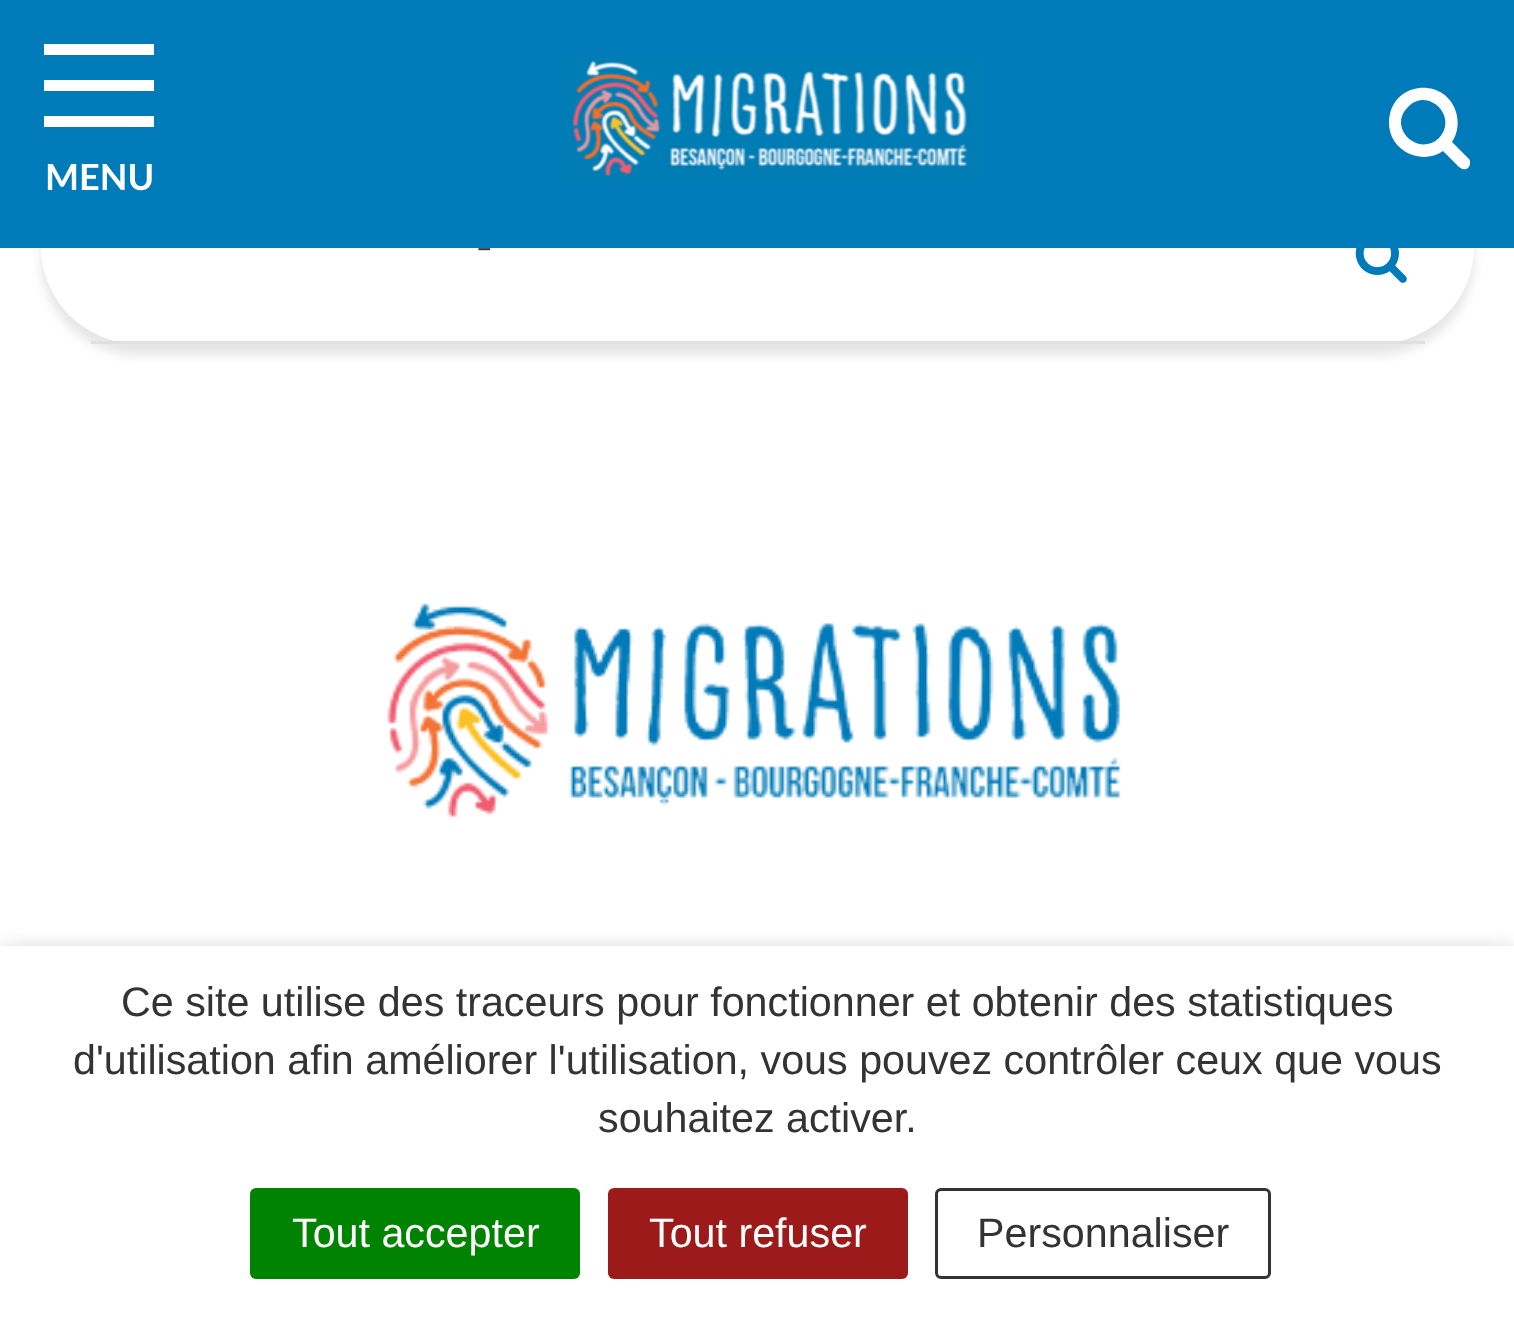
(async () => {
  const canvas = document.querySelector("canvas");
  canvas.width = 1514;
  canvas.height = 1320;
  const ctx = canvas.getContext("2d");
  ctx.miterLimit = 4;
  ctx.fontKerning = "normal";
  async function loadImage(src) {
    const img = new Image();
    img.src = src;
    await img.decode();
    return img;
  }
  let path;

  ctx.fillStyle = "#ffffff";
  ctx.fillRect(0, 0, 1514, 1320);
  ctx.fillStyle = "rgba(0, 0, 0, 0.1)";
  ctx.filter = "blur(5.5px)";
  ctx.beginPath();
  ctx.roundRect(41, 160, 1433, 195, 97.5);
  ctx.fill();
  ctx.filter = "none";
  ctx.fillStyle = "#ffffff";
  ctx.beginPath();
  ctx.roundRect(41, 149, 1433, 195, 97.5);
  ctx.fill();
  ctx.fillStyle = "#007ab8";
  ctx.fillRect(0, 0, 1514, 248);
  ctx.drawImage(await loadImage("img/1.png"), 561, 56, 423, 125);
  ctx.fillStyle = "#ffffff";
  path = new Path2D("M1439 138C1459 117 1428 86 1408 107C1387 127 1418 158 1439 138ZM1470 163C1470 165 1469 167 1468 168C1462 172 1457 165 1454 162L1443 151C1426 163 1401 156 1392 137C1389 130 1388 121 1390 114C1398 80 1446 79 1456 112C1459 122 1458 133 1452 142L1469 159C1470 160 1470 161 1470 163Z");
  ctx.fill(path);
  for (const [x, y, w, h, color] of [
    [44, 44, 110, 11, "#ffffff"],
    [44, 80, 110, 11, "#ffffff"],
    [44, 116, 110, 11, "#ffffff"],
    [91, 341, 1334, 3, "#e0e0e0"],
  ]) {
    ctx.fillStyle = color;
    ctx.fillRect(x, y, w, h);
  }
  ctx.drawImage(await loadImage("img/2.png"), 1355, 248, 52, 35);
  ctx.drawImage(await loadImage("img/3.png"), 387, 603, 734, 215);
  ctx.fillStyle = "rgba(0, 0, 0, 0.5)";
  ctx.filter = "blur(14px)";
  ctx.beginPath();
  ctx.rect(0, 960, 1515, 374);
  ctx.fill();
  ctx.filter = "none";
  ctx.fillStyle = "#ffffff";
  ctx.fillRect(0, 946, 1514, 374);
  ctx.fillStyle = "#008300";
  ctx.beginPath();
  ctx.roundRect(250, 1188, 330, 91, 6);
  ctx.fill();
  ctx.fillStyle = "#9c1a1a";
  ctx.beginPath();
  ctx.roundRect(608, 1188, 300, 91, 6);
  ctx.fill();
  ctx.beginPath();
  ctx.roundRect(936.5, 1189.5, 333, 88, 4.5);
  ctx.strokeStyle = "#333333";
  ctx.lineWidth = 3;
  ctx.stroke();
  ctx.font = "bold 36px Lato";
  ctx.fillStyle = "#ffffff";
  ctx.fillText("MENU", 45, 190);
  ctx.font = "300 50px Lato";
  ctx.fillStyle = "#333333";
  ctx.fillText("-", 475, 264);
  ctx.font = "41.25px Liberation Sans";
  for (const [text, x, y] of [
    ["Ce site utilise des traceurs pour fonctionner et obtenir des statistiques", 121, 1016],
    ["d'utilisation afin améliorer l'utilisation, vous pouvez contrôler ceux que vous", 73, 1074],
    ["souhaitez activer.", 598, 1132],
  ]) {
    ctx.fillText(text, x, y);
  }
  ctx.fillStyle = "#ffffff";
  ctx.fillText("Tout accepter", 292, 1247);
  ctx.fillText("Tout refuser", 649, 1247);
  ctx.fillStyle = "#333333";
  ctx.fillText("Personnaliser", 977, 1247);
})();
